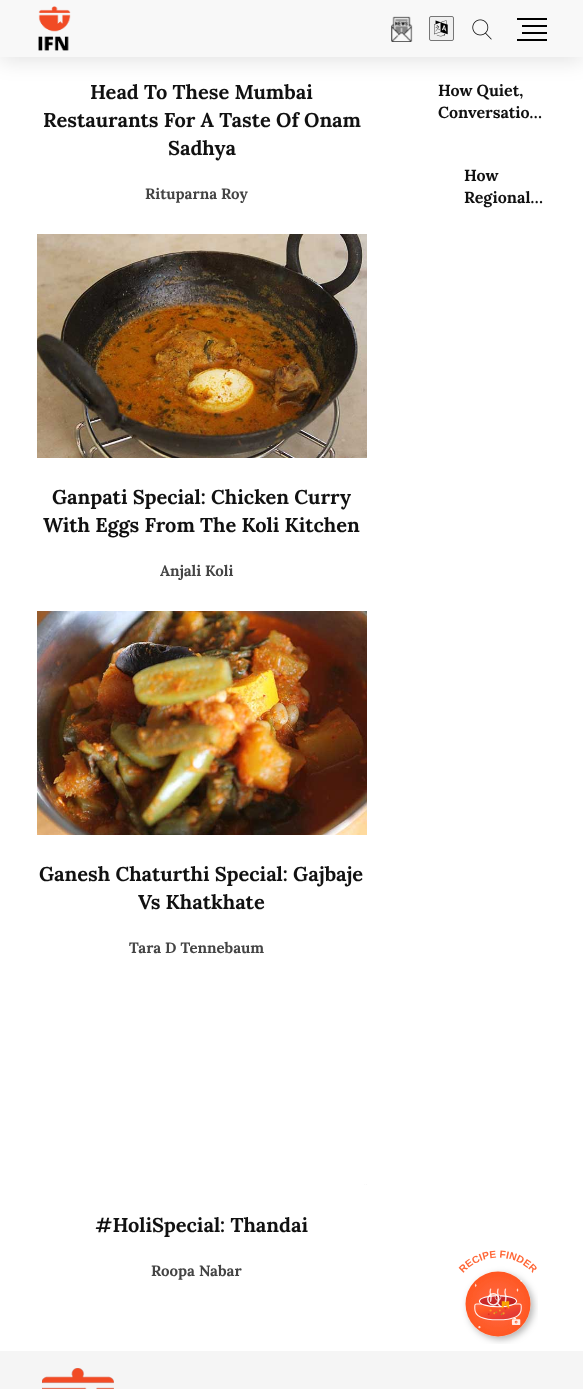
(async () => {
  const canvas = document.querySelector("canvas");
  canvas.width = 583;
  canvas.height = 1389;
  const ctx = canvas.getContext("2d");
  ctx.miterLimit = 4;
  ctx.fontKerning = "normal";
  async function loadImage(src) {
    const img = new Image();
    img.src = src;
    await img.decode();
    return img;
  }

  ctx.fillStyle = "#ffffff";
  ctx.fillRect(0, 0, 583, 1389);
  ctx.fillStyle = "rgba(0, 0, 0, 0.1)";
  ctx.filter = "blur(10px)";
  ctx.beginPath();
  ctx.rect(0, 5, 583, 57);
  ctx.fill();
  ctx.filter = "none";
  ctx.fillStyle = "#f8f8f8";
  ctx.fillRect(0, 0, 583, 57);
  ctx.drawImage(await loadImage("img/1.png"), 38, 6, 33, 45);
  ctx.drawImage(await loadImage("img/2.png"), 391, 16, 22, 26);
  ctx.fillStyle = "#efefef";
  ctx.beginPath();
  ctx.roundRect(429.5, 16.5, 24, 24, 1.5);
  ctx.fill();
  ctx.strokeStyle = "#767676";
  ctx.stroke();
  ctx.drawImage(await loadImage("img/3.png"), 434, 20, 14, 17);
  ctx.drawImage(await loadImage("img/4.png"), 472, 19, 20, 21);
  for (const [x, y, w, h, color] of [
    [517, 18, 30, 2, "#000000"],
    [522, 25, 25, 2, "#000000"],
    [522, 32, 25, 2, "#000000"],
    [517, 39, 30, 2, "#000000"],
  ]) {
    ctx.fillStyle = color;
    ctx.fillRect(x, y, w, h);
  }
  ctx.drawImage(await loadImage("img/5.png"), 37, 234, 330, 224);
  ctx.drawImage(await loadImage("img/6.png"), 37, 611, 330, 224);
  ctx.drawImage(await loadImage("img/7.png"), 364, 1184, 3, 1);
  ctx.fillStyle = "#f5f5f5";
  ctx.fillRect(0, 1351, 583, 38);
  ctx.drawImage(await loadImage("img/8.png"), 42, 1368, 72, 21);
  ctx.drawImage(await loadImage("img/9.png"), 458, 1250, 80, 94);
  ctx.font = "bold 20px Lora";
  ctx.fillStyle = "#111111";
  for (const [text, x, y] of [
    ["Head To These Mumbai", 90, 99],
    ["Restaurants For A Taste Of Onam", 43, 127],
    ["Sadhya", 168, 155],
  ]) {
    ctx.fillText(text, x, y);
  }
  ctx.font = "bold 15px Lora";
  ctx.fillStyle = "#444444";
  ctx.fillText("Rituparna Roy", 145, 199);
  ctx.font = "bold 20px Lora";
  ctx.fillStyle = "#111111";
  ctx.fillText("Ganpati Special: Chicken Curry", 52, 504);
  ctx.fillText("With Eggs From The Koli Kitchen", 43, 532);
  ctx.font = "bold 15px Lora";
  ctx.fillStyle = "#444444";
  ctx.fillText("Anjali Koli", 160, 576);
  ctx.font = "bold 20px Lora";
  ctx.fillStyle = "#111111";
  ctx.fillText("Ganesh Chaturthi Special: Gajbaje", 39, 881);
  ctx.fillText("Vs Khatkhate", 138, 909);
  ctx.font = "bold 15px Lora";
  ctx.fillStyle = "#444444";
  ctx.fillText("Tara D Tennebaum", 129, 953);
  ctx.font = "bold 20px Lora";
  ctx.fillStyle = "#111111";
  ctx.fillText("#HoliSpecial: Thandai", 95, 1232);
  ctx.font = "bold 15px Lora";
  ctx.fillStyle = "#444444";
  ctx.fillText("Roopa Nabar", 151, 1276);
  ctx.font = "bold 16px Lora";
  ctx.fillStyle = "#111111";
  for (const [text, x, y] of [
    ["How Quiet,", 438, 96],
    ["Conversatio…", 438, 118],
    ["How", 464, 181],
    ["Regional…", 464, 203],
  ]) {
    ctx.fillText(text, x, y);
  }
})();
